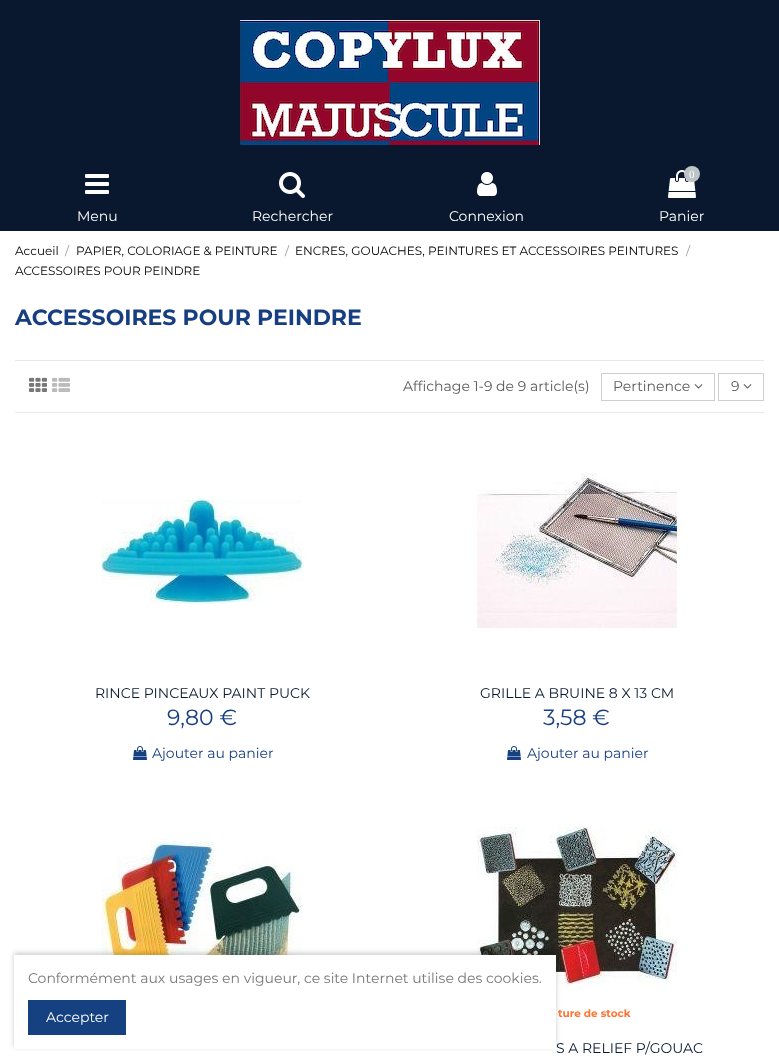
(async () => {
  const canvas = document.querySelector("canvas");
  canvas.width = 779;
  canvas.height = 1063;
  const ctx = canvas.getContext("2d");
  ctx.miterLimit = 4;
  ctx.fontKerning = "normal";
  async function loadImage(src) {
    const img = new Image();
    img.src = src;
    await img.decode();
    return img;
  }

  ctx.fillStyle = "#ffffff";
  ctx.fillRect(0, 0, 779, 1063);
  ctx.fillStyle = "#09182f";
  ctx.fillRect(0, 0, 779, 231);
  ctx.drawImage(await loadImage("img/1.png"), 240, 20, 300, 125);
  ctx.drawImage(await loadImage("img/2.png"), 85, 174, 24, 20);
  ctx.drawImage(await loadImage("img/3.png"), 279, 172, 26, 26);
  ctx.drawImage(await loadImage("img/4.png"), 477, 172, 20, 24);
  ctx.drawImage(await loadImage("img/5.png"), 668, 170, 28, 28);
  ctx.fillStyle = "#bdc4c6";
  ctx.beginPath();
  ctx.arc(692, 174, 8, 0, Math.PI * 2);
  ctx.fill();
  ctx.fillStyle = "#e8e8e8";
  ctx.fillRect(15, 360, 749, 1);
  ctx.fillRect(15, 412, 749, 1);
  ctx.drawImage(await loadImage("img/6.png"), 29, 377, 18, 15);
  ctx.drawImage(await loadImage("img/7.png"), 52, 377, 18, 15);
  ctx.strokeStyle = "#cecece";
  ctx.strokeRect(601.5, 373.5, 113, 27);
  ctx.drawImage(await loadImage("img/8.png"), 694, 384, 9, 5);
  ctx.strokeRect(718.5, 373.5, 45, 27);
  ctx.drawImage(await loadImage("img/8.png"), 743, 384, 9, 5);
  ctx.drawImage(await loadImage("img/9.png"), 101, 495, 205, 109);
  ctx.drawImage(await loadImage("img/10.png"), 133, 746, 14, 14);
  ctx.drawImage(await loadImage("img/11.png"), 477, 472, 208, 156);
  ctx.drawImage(await loadImage("img/10.png"), 507, 746, 14, 14);
  ctx.drawImage(await loadImage("img/12.png"), 102, 838, 200, 117);
  ctx.drawImage(await loadImage("img/13.png"), 477, 823, 200, 167);
  ctx.fillStyle = "rgba(0, 0, 0, 0.2)";
  ctx.filter = "blur(2.5px)";
  ctx.beginPath();
  ctx.rect(14, 953, 542, 94);
  ctx.fill();
  ctx.filter = "none";
  ctx.fillStyle = "#ffffff";
  ctx.fillRect(14, 955, 542, 94);
  ctx.fillStyle = "#154181";
  ctx.fillRect(28, 1000, 98, 35);
  ctx.font = "14px Montserrat";
  ctx.fillStyle = "#ffffff";
  for (const [text, x, y] of [
    ["Menu", 77, 221],
    ["Rechercher", 252, 221],
    ["Connexion", 449, 221],
  ]) {
    ctx.fillText(text, x, y);
  }
  ctx.font = "11px Liberation Serif";
  ctx.fillText("0", 689, 178);
  ctx.font = "14px Montserrat";
  ctx.fillText("Panier", 659, 221);
  ctx.font = "12px Montserrat";
  ctx.fillStyle = "#000000";
  ctx.fillText("Accueil", 15, 255);
  ctx.fillStyle = "#999999";
  ctx.fillText("/", 65, 255);
  ctx.fillStyle = "#000000";
  ctx.fillText("PAPIER, COLORIAGE & PEINTURE", 76, 255);
  ctx.fillStyle = "#999999";
  ctx.fillText("/", 285, 255);
  ctx.fillStyle = "#000000";
  ctx.fillText("ENCRES, GOUACHES, PEINTURES ET ACCESSOIRES PEINTURES", 295, 255);
  ctx.fillStyle = "#999999";
  ctx.fillText("/", 686, 255);
  ctx.fillStyle = "#000000";
  ctx.fillText("ACCESSOIRES POUR PEINDRE", 15, 275);
  ctx.font = "bold 22px Montserrat";
  ctx.fillStyle = "#173e81";
  ctx.fillText("ACCESSOIRES POUR PEINDRE", 15, 325);
  ctx.font = "14px Montserrat";
  ctx.fillStyle = "#5b5b5b";
  for (const [text, x, y] of [
    ["Affichage 1-9 de 9 article(s)", 403, 391],
    ["Pertinence", 613, 391],
    ["9", 731, 391],
  ]) {
    ctx.fillText(text, x, y);
  }
  ctx.fillStyle = "#09182f";
  ctx.fillText("RINCE PINCEAUX PAINT PUCK", 95, 698);
  ctx.font = "22px Montserrat";
  ctx.fillStyle = "#173e81";
  ctx.fillText("9,80 €", 167, 725);
  ctx.font = "14px Montserrat";
  ctx.fillText("Ajouter au panier", 152, 758);
  ctx.fillStyle = "#09182f";
  ctx.fillText("GRILLE A BRUINE 8 X 13 CM", 480, 698);
  ctx.font = "22px Montserrat";
  ctx.fillStyle = "#173e81";
  ctx.fillText("3,58 €", 543, 725);
  ctx.font = "14px Montserrat";
  ctx.fillText("Ajouter au panier", 527, 758);
  ctx.font = "bold 10.5px Montserrat";
  ctx.fillStyle = "#ff7430";
  ctx.fillText("ture de stock", 558, 1017);
  ctx.font = "14px Montserrat";
  ctx.fillStyle = "#09182f";
  ctx.fillText("S A RELIEF P/GOUAC", 556, 1053);
  ctx.fillStyle = "#777777";
  ctx.fillText("Conformément aux usages en vigueur, ce site Internet utilise des cookies.", 28, 983);
  ctx.fillStyle = "#ffffff";
  ctx.fillText("Accepter", 46, 1022);
})();
